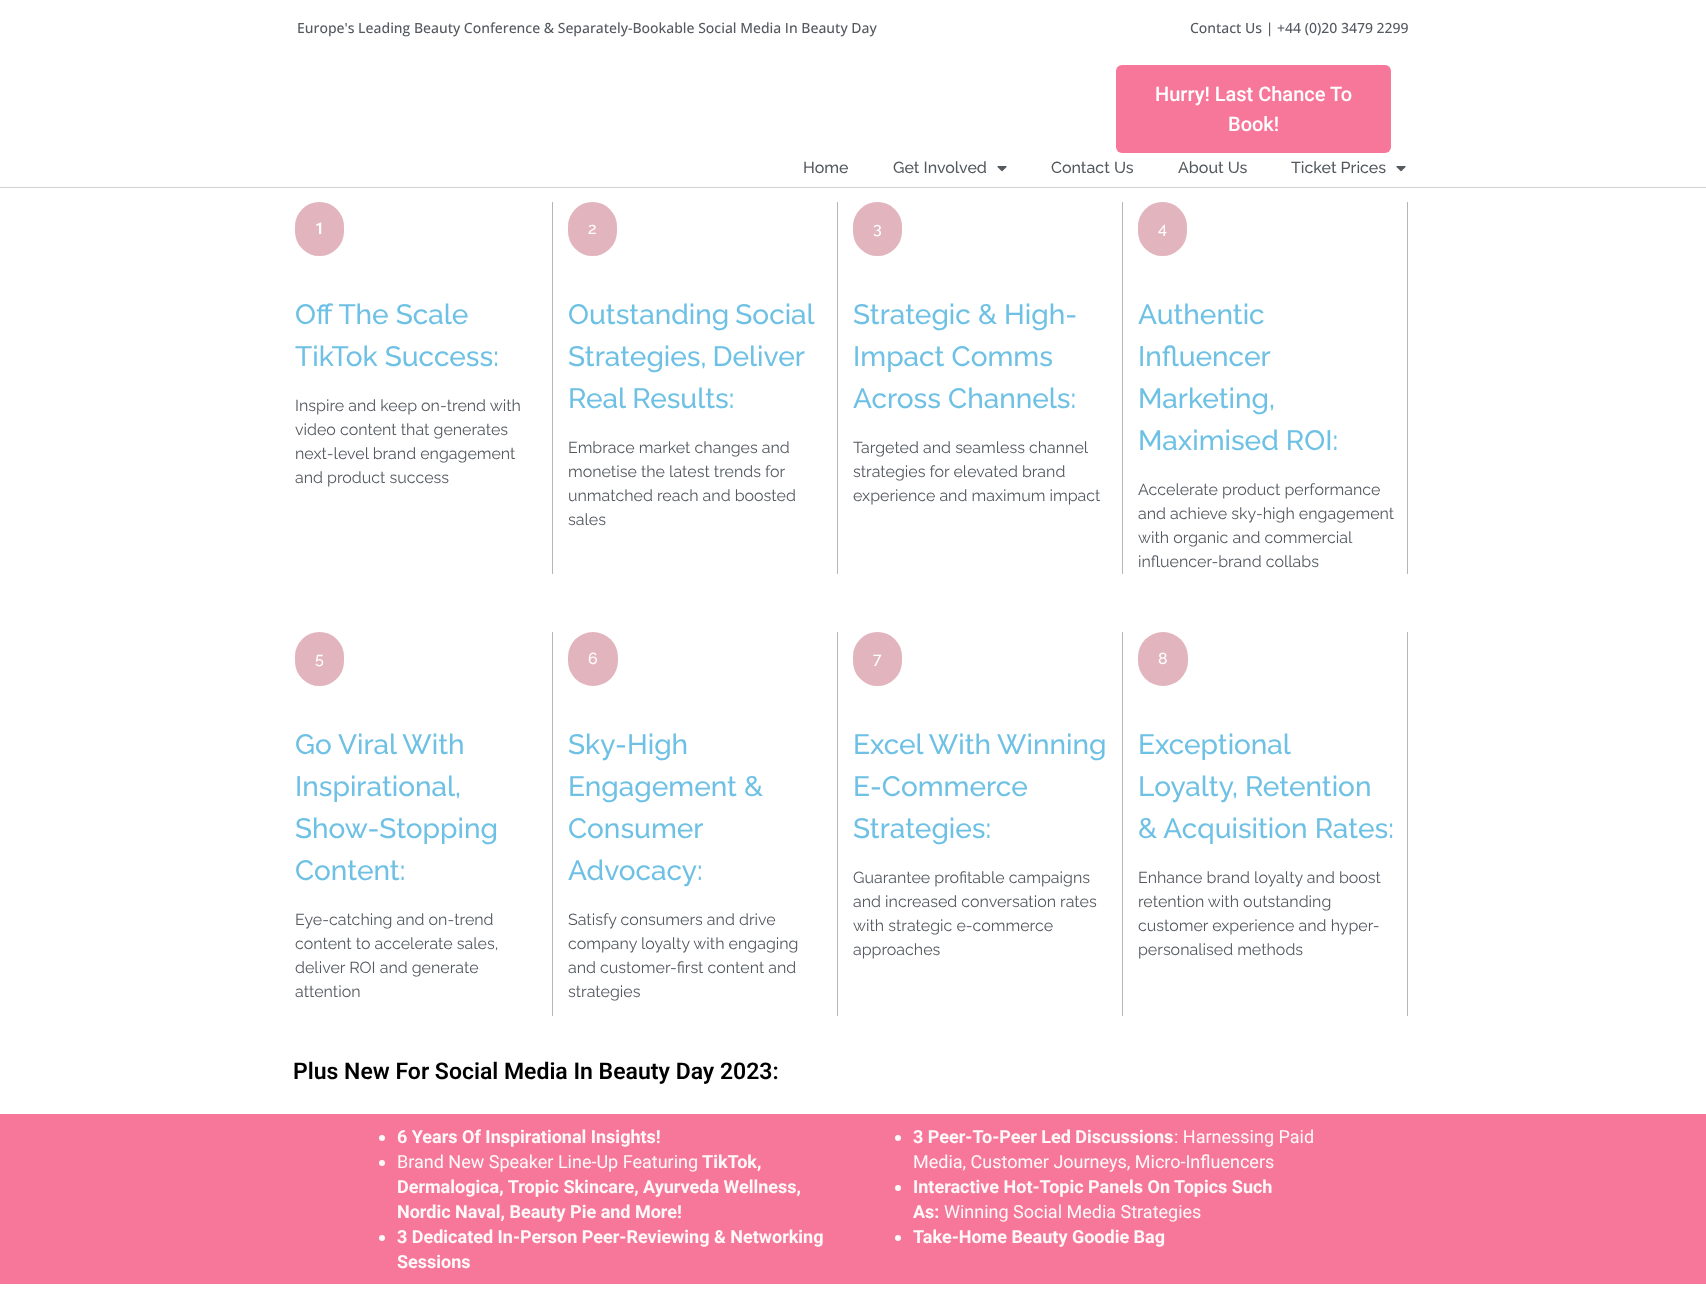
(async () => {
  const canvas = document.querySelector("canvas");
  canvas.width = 1706;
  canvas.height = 1291;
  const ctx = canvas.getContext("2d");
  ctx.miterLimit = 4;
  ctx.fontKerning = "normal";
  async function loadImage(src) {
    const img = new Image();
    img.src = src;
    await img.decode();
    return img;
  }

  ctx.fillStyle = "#ffffff";
  ctx.fillRect(0, 0, 1706, 1291);
  ctx.fillStyle = "#d3d3d3";
  ctx.fillRect(0, 187, 1706, 1);
  ctx.fillStyle = "#f67799";
  ctx.beginPath();
  ctx.roundRect(1116, 65, 275, 88, 6);
  ctx.fill();
  ctx.drawImage(await loadImage("img/1.png"), 997, 166, 10, 6);
  ctx.drawImage(await loadImage("img/1.png"), 1396, 166, 10, 6);
  ctx.fillStyle = "#b5b8ba";
  ctx.fillRect(552, 202, 1, 372);
  ctx.fillStyle = "#e2b4bd";
  ctx.beginPath();
  ctx.roundRect(295, 202, 49, 54, 24.5);
  ctx.fill();
  ctx.fillStyle = "#b5b8ba";
  ctx.fillRect(837, 202, 1, 372);
  ctx.fillStyle = "#e2b4bd";
  ctx.beginPath();
  ctx.roundRect(568, 202, 49, 54, 24.5);
  ctx.fill();
  ctx.fillStyle = "#b5b8ba";
  ctx.fillRect(1122, 202, 1, 372);
  ctx.fillStyle = "#e2b4bd";
  ctx.beginPath();
  ctx.roundRect(853, 202, 49, 54, 24.5);
  ctx.fill();
  ctx.fillStyle = "#b5b8ba";
  ctx.fillRect(1407, 202, 1, 372);
  ctx.fillStyle = "#e2b4bd";
  ctx.beginPath();
  ctx.roundRect(1138, 202, 49, 54, 24.5);
  ctx.fill();
  ctx.fillStyle = "#b5b8ba";
  ctx.fillRect(552, 632, 1, 384);
  ctx.fillStyle = "#e2b4bd";
  ctx.beginPath();
  ctx.roundRect(295, 632, 49, 54, 24.5);
  ctx.fill();
  ctx.fillStyle = "#b5b8ba";
  ctx.fillRect(837, 632, 1, 384);
  ctx.fillStyle = "#e2b4bd";
  ctx.beginPath();
  ctx.roundRect(568, 632, 50, 54, 25);
  ctx.fill();
  ctx.fillStyle = "#b5b8ba";
  ctx.fillRect(1122, 632, 1, 384);
  ctx.fillStyle = "#e2b4bd";
  ctx.beginPath();
  ctx.roundRect(853, 632, 49, 54, 24.5);
  ctx.fill();
  ctx.fillStyle = "#b5b8ba";
  ctx.fillRect(1407, 632, 1, 384);
  ctx.fillStyle = "#e2b4bd";
  ctx.beginPath();
  ctx.roundRect(1138, 632, 50, 54, 25);
  ctx.fill();
  ctx.fillStyle = "#f67799";
  ctx.fillRect(0, 1114, 1706, 170);
  ctx.fillStyle = "#fff9f9";
  ctx.beginPath();
  ctx.arc(382, 1138, 3, 0, Math.PI * 2);
  ctx.fill();
  ctx.beginPath();
  ctx.arc(382, 1163, 3, 0, Math.PI * 2);
  ctx.fill();
  ctx.beginPath();
  ctx.arc(382, 1238, 3, 0, Math.PI * 2);
  ctx.fill();
  ctx.beginPath();
  ctx.arc(898, 1138, 3, 0, Math.PI * 2);
  ctx.fill();
  ctx.beginPath();
  ctx.arc(898, 1188, 3, 0, Math.PI * 2);
  ctx.fill();
  ctx.beginPath();
  ctx.arc(898, 1238, 3, 0, Math.PI * 2);
  ctx.fill();
  ctx.font = "500 14px Open Sans";
  ctx.fillStyle = "#54595f";
  ctx.fillText("Europe's Leading Beauty Conference & Separately-Bookable Social Media In Beauty Day", 297, 33);
  ctx.fillText("Contact Us | +44 (0)20 3479 2299", 1190, 33);
  ctx.font = "500 20px Roboto";
  ctx.fillStyle = "#ffffff";
  ctx.fillText("Hurry! Last Chance To", 1155, 101);
  ctx.fillText("Book!", 1228, 131);
  ctx.font = "500 16px Raleway";
  ctx.fillStyle = "#54595f";
  for (const [text, x, y] of [
    ["Home", 803, 173],
    ["Get Involved", 893, 173],
    ["Contact Us", 1051, 173],
    ["About Us", 1178, 173],
    ["Ticket Prices", 1291, 173],
  ]) {
    ctx.fillText(text, x, y);
  }
  ctx.font = "600 16px Roboto";
  ctx.fillStyle = "#ffffff";
  ctx.fillText("1", 315, 234);
  ctx.font = "500 28px Raleway";
  ctx.fillStyle = "#6ec1e4";
  ctx.fillText("Off The Scale", 295, 324);
  ctx.fillText("TikTok Success:", 295, 366);
  ctx.font = "16px Raleway";
  ctx.fillStyle = "#54595f";
  for (const [text, x, y] of [
    ["Inspire and keep on-trend with", 295, 411],
    ["video content that generates", 295, 435],
    ["next-level brand engagement", 295, 459],
    ["and product success", 295, 483],
  ]) {
    ctx.fillText(text, x, y);
  }
  ctx.font = "500 16px Raleway";
  ctx.fillStyle = "#ffffff";
  ctx.fillText("2", 588, 234);
  ctx.wordSpacing = "-1px";
  ctx.font = "500 28px Raleway";
  ctx.fillStyle = "#6ec1e4";
  ctx.fillText("Outstanding Social", 568, 324);
  ctx.fillText("Strategies, Deliver", 568, 366);
  ctx.wordSpacing = "0px";
  ctx.fillText("Real Results:", 568, 408);
  ctx.font = "16px Raleway";
  ctx.fillStyle = "#54595f";
  for (const [text, x, y] of [
    ["Embrace market changes and", 568, 453],
    ["monetise the latest trends for", 568, 477],
    ["unmatched reach and boosted", 568, 501],
    ["sales", 568, 525],
  ]) {
    ctx.fillText(text, x, y);
  }
  ctx.font = "500 16px Raleway";
  ctx.fillStyle = "#ffffff";
  ctx.fillText("3", 873, 234);
  ctx.font = "500 28px Raleway";
  ctx.fillStyle = "#6ec1e4";
  for (const [text, x, y] of [
    ["Strategic & High-", 853, 324],
    ["Impact Comms", 853, 366],
    ["Across Channels:", 853, 408],
  ]) {
    ctx.fillText(text, x, y);
  }
  ctx.font = "16px Raleway";
  ctx.fillStyle = "#54595f";
  for (const [text, x, y] of [
    ["Targeted and seamless channel", 853, 453],
    ["strategies for elevated brand", 853, 477],
    ["experience and maximum impact", 853, 501],
  ]) {
    ctx.fillText(text, x, y);
  }
  ctx.font = "500 16px Raleway";
  ctx.fillStyle = "#ffffff";
  ctx.fillText("4", 1158, 234);
  ctx.font = "500 28px Raleway";
  ctx.fillStyle = "#6ec1e4";
  for (const [text, x, y] of [
    ["Authentic", 1138, 324],
    ["Influencer", 1138, 366],
    ["Marketing,", 1138, 408],
    ["Maximised ROI:", 1138, 450],
  ]) {
    ctx.fillText(text, x, y);
  }
  ctx.font = "16px Raleway";
  ctx.fillStyle = "#54595f";
  for (const [text, x, y] of [
    ["Accelerate product performance", 1138, 495],
    ["and achieve sky-high engagement", 1138, 519],
    ["with organic and commercial", 1138, 543],
    ["influencer-brand collabs", 1138, 567],
  ]) {
    ctx.fillText(text, x, y);
  }
  ctx.font = "500 16px Raleway";
  ctx.fillStyle = "#ffffff";
  ctx.fillText("5", 315, 664);
  ctx.font = "500 28px Raleway";
  ctx.fillStyle = "#6ec1e4";
  for (const [text, x, y] of [
    ["Go Viral With", 295, 754],
    ["Inspirational,", 295, 796],
    ["Show-Stopping", 295, 838],
    ["Content:", 295, 880],
  ]) {
    ctx.fillText(text, x, y);
  }
  ctx.font = "16px Raleway";
  ctx.fillStyle = "#54595f";
  for (const [text, x, y] of [
    ["Eye-catching and on-trend", 295, 925],
    ["content to accelerate sales,", 295, 949],
    ["deliver ROI and generate", 295, 973],
    ["attention", 295, 997],
  ]) {
    ctx.fillText(text, x, y);
  }
  ctx.font = "500 16px Raleway";
  ctx.fillStyle = "#ffffff";
  ctx.fillText("6", 588, 664);
  ctx.font = "500 28px Raleway";
  ctx.fillStyle = "#6ec1e4";
  for (const [text, x, y] of [
    ["Sky-High", 568, 754],
    ["Engagement &", 568, 796],
    ["Consumer", 568, 838],
    ["Advocacy:", 568, 880],
  ]) {
    ctx.fillText(text, x, y);
  }
  ctx.font = "16px Raleway";
  ctx.fillStyle = "#54595f";
  for (const [text, x, y] of [
    ["Satisfy consumers and drive", 568, 925],
    ["company loyalty with engaging", 568, 949],
    ["and customer-first content and", 568, 973],
    ["strategies", 568, 997],
  ]) {
    ctx.fillText(text, x, y);
  }
  ctx.font = "500 16px Raleway";
  ctx.fillStyle = "#ffffff";
  ctx.fillText("7", 873, 664);
  ctx.font = "500 28px Raleway";
  ctx.fillStyle = "#6ec1e4";
  for (const [text, x, y] of [
    ["Excel With Winning", 853, 754],
    ["E-Commerce", 853, 796],
    ["Strategies:", 853, 838],
  ]) {
    ctx.fillText(text, x, y);
  }
  ctx.font = "16px Raleway";
  ctx.fillStyle = "#54595f";
  for (const [text, x, y] of [
    ["Guarantee profitable campaigns", 853, 883],
    ["and increased conversation rates", 853, 907],
    ["with strategic e-commerce", 853, 931],
    ["approaches", 853, 955],
  ]) {
    ctx.fillText(text, x, y);
  }
  ctx.font = "500 16px Raleway";
  ctx.fillStyle = "#ffffff";
  ctx.fillText("8", 1158, 664);
  ctx.font = "500 28px Raleway";
  ctx.fillStyle = "#6ec1e4";
  for (const [text, x, y] of [
    ["Exceptional", 1138, 754],
    ["Loyalty, Retention", 1138, 796],
    ["& Acquisition Rates:", 1138, 838],
  ]) {
    ctx.fillText(text, x, y);
  }
  ctx.font = "16px Raleway";
  ctx.fillStyle = "#54595f";
  for (const [text, x, y] of [
    ["Enhance brand loyalty and boost", 1138, 883],
    ["retention with outstanding", 1138, 907],
    ["customer experience and hyper-", 1138, 931],
    ["personalised methods", 1138, 955],
  ]) {
    ctx.fillText(text, x, y);
  }
  ctx.font = "600 23px Roboto";
  ctx.fillStyle = "#000000";
  ctx.fillText("Plus New For Social Media In Beauty Day 2023:", 293, 1079);
  ctx.font = "bold 18px Roboto";
  ctx.fillStyle = "#fff9f9";
  ctx.fillText("6 Years Of Inspirational Insights!", 397, 1143);
  ctx.font = "18px Roboto";
  ctx.fillText("Brand New Speaker Line-Up Featuring", 397, 1168);
  ctx.font = "bold 18px Roboto";
  for (const [text, x, y] of [
    ["TikTok,", 702, 1168],
    ["Dermalogica, Tropic Skincare, Ayurveda Wellness,", 397, 1193],
    ["Nordic Naval, Beauty Pie and More!", 397, 1218],
    ["3 Dedicated In-Person Peer-Reviewing & Networking", 397, 1243],
    ["Sessions", 397, 1268],
    ["3 Peer-To-Peer Led Discussions", 913, 1143],
  ]) {
    ctx.fillText(text, x, y);
  }
  ctx.font = "18px Roboto";
  ctx.fillText(": Harnessing Paid", 1174, 1143);
  ctx.fillText("Media, Customer Journeys, Micro-Influencers", 913, 1168);
  ctx.font = "bold 18px Roboto";
  ctx.fillText("Interactive Hot-Topic Panels On Topics Such", 913, 1193);
  ctx.fillText("As:", 913, 1218);
  ctx.font = "18px Roboto";
  ctx.fillText("Winning Social Media Strategies", 944, 1218);
  ctx.font = "bold 18px Roboto";
  ctx.fillText("Take-Home Beauty Goodie Bag", 913, 1243);
})();
